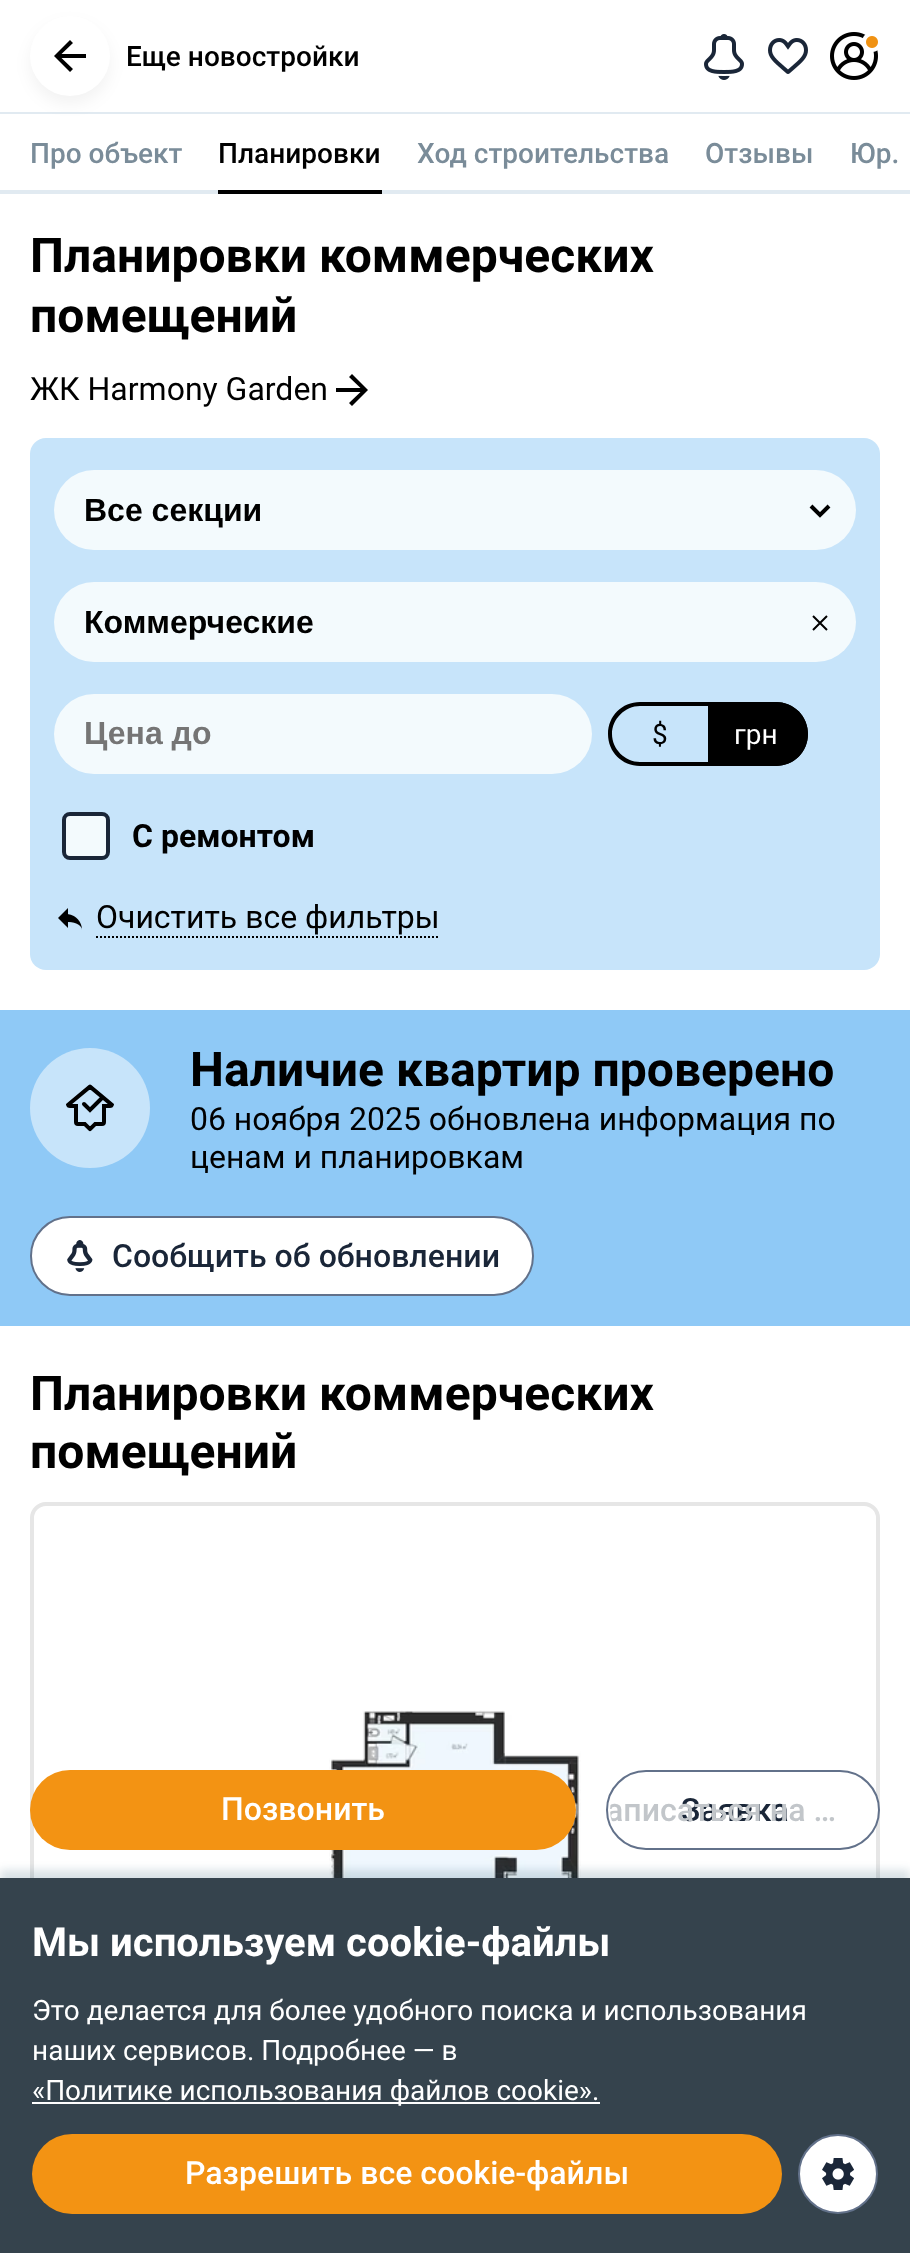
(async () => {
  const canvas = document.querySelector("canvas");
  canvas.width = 910;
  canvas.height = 2253;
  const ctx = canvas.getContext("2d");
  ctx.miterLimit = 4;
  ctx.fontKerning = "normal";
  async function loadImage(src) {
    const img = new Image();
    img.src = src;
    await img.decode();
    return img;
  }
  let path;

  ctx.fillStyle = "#ffffff";
  ctx.fillRect(0, 0, 910, 2253);
  ctx.fillStyle = "#e1eaf1";
  ctx.fillRect(0, 112, 910, 2);
  ctx.fillStyle = "rgba(0, 0, 0, 0.05)";
  ctx.filter = "blur(8px)";
  ctx.beginPath();
  ctx.roundRect(30, 24, 80, 80, 40);
  ctx.fill();
  ctx.filter = "none";
  ctx.fillStyle = "#ffffff";
  ctx.beginPath();
  ctx.arc(70, 56, 40, 0, Math.PI * 2);
  ctx.fill();
  ctx.fillStyle = "#000000";
  path = new Path2D("M86 58H61.5L73 69L70 72L54 56L70 40L73 43L61.5 54H86Z");
  ctx.fill(path);
  ctx.drawImage(await loadImage("img/1.png"), 704, 34, 40, 46);
  ctx.drawImage(await loadImage("img/2.png"), 768, 38, 40, 36);
  ctx.drawImage(await loadImage("img/3.png"), 830, 32, 48, 48);
  ctx.fillStyle = "#e1eaf1";
  ctx.fillRect(0, 190, 910, 4);
  ctx.fillStyle = "#000000";
  ctx.fillRect(218, 190, 164, 4);
  path = new Path2D("M336 392H360.5L349 403L352 406L368 390L352 374L349 377L360.5 388H336Z");
  ctx.fill(path);
  ctx.fillStyle = "#c7e4fa";
  ctx.beginPath();
  ctx.roundRect(30, 438, 850, 532, 16);
  ctx.fill();
  ctx.fillStyle = "#f3fafd";
  ctx.beginPath();
  ctx.roundRect(54, 470, 802, 80, 40);
  ctx.fill();
  path = new Path2D("M811 506L820 515L829 506");
  ctx.strokeStyle = "#000000";
  ctx.lineWidth = 4;
  ctx.stroke(path);
  ctx.beginPath();
  ctx.roundRect(54, 582, 802, 80, 40);
  ctx.fill();
  path = new Path2D("M813 616L827 630M827 616L813 630");
  ctx.lineWidth = 2;
  ctx.stroke(path);
  ctx.beginPath();
  ctx.roundRect(54, 694, 538, 80, 40);
  ctx.fill();
  ctx.fillStyle = "#000000";
  path = new Path2D("M640 702H708V766H640C622 766 608 752 608 734C608 716 622 702 640 702ZM640 706H708V762H640C625 762 612 749 612 734C612 719 625 706 640 706Z");
  ctx.fill(path, "evenodd");
  ctx.beginPath();
  ctx.roundRect(708, 702, 100, 64, [0, 32, 32, 0]);
  ctx.fill();
  path = new Path2D("M708 702H776C794 702 808 716 808 734C808 752 794 766 776 766H708ZM708 706H776C791 706 804 719 804 734C804 749 791 762 776 762H708Z");
  ctx.fill(path, "evenodd");
  ctx.fillStyle = "#f3fafd";
  ctx.beginPath();
  ctx.roundRect(64, 814, 44, 44, 6);
  ctx.fill();
  ctx.strokeStyle = "#1a2638";
  ctx.lineWidth = 4;
  ctx.stroke();
  ctx.drawImage(await loadImage("img/4.png"), 58, 908, 24, 22);
  path = new Path2D("M96 937H440");
  ctx.strokeStyle = "#000000";
  ctx.lineWidth = 2;
  ctx.setLineDash([2, 2]);
  ctx.stroke(path);
  ctx.fillStyle = "#8fc9f6";
  ctx.fillRect(0, 1010, 910, 316);
  ctx.drawImage(await loadImage("img/5.png"), 30, 1048, 120, 120);
  ctx.fillStyle = "#ffffff";
  ctx.beginPath();
  ctx.roundRect(31, 1217, 502, 78, 39);
  ctx.fill();
  ctx.strokeStyle = "#62718a";
  ctx.setLineDash([]);
  ctx.stroke();
  ctx.drawImage(await loadImage("img/6.png"), 67, 1240, 26, 32);
  ctx.beginPath();
  ctx.roundRect(32, 1504, 846, 622, 14);
  ctx.strokeStyle = "#e6e6e6";
  ctx.lineWidth = 4;
  ctx.stroke();
  ctx.drawImage(await loadImage("img/7.png"), 329, 1710, 252, 168);
  ctx.fillStyle = "#f39313";
  ctx.beginPath();
  ctx.roundRect(30, 1770, 546, 80, 40);
  ctx.fill();
  ctx.fillStyle = "#ffffff";
  ctx.beginPath();
  ctx.roundRect(607, 1771, 272, 78, 39);
  ctx.fill();
  ctx.strokeStyle = "#62718a";
  ctx.lineWidth = 2;
  ctx.stroke();
  ctx.fillStyle = "rgba(0, 59, 86, 0.15)";
  ctx.filter = "blur(4px)";
  ctx.beginPath();
  ctx.rect(0, 1870, 910, 376);
  ctx.fill();
  ctx.filter = "none";
  ctx.fillStyle = "#35434d";
  ctx.fillRect(0, 1878, 910, 375);
  ctx.fillStyle = "#ffffff";
  ctx.fillRect(32, 2102, 568, 2);
  ctx.fillStyle = "#f39313";
  ctx.beginPath();
  ctx.roundRect(32, 2134, 750, 80, 40);
  ctx.fill();
  ctx.fillStyle = "#ffffff";
  ctx.beginPath();
  ctx.arc(838, 2174, 39, 0, Math.PI * 2);
  ctx.fill();
  ctx.stroke();
  ctx.drawImage(await loadImage("img/8.png"), 822, 2158, 32, 32);
  ctx.font = "500 28px Roboto";
  ctx.fillStyle = "#000000";
  ctx.fillText("Еще новостройки", 126, 66);
  ctx.fillStyle = "#7a8c99";
  ctx.fillText("Про объект", 30, 163);
  ctx.fillStyle = "#000000";
  ctx.fillText("Планировки", 218, 163);
  ctx.fillStyle = "#7a8c99";
  for (const [text, x, y] of [
    ["Ход строительства", 417, 163],
    ["Отзывы", 705, 163],
    ["Юр.", 850, 163],
  ]) {
    ctx.fillText(text, x, y);
  }
  ctx.font = "bold 48px Roboto";
  ctx.fillStyle = "#000000";
  ctx.fillText("Планировки коммерческих", 30, 272);
  ctx.fillText("помещений", 30, 332);
  ctx.font = "32px Roboto";
  ctx.fillText("ЖК Harmony Garden", 30, 400);
  ctx.font = "bold 32px Liberation Sans";
  ctx.fillText("Все секции", 84, 521);
  ctx.fillText("Коммерческие", 84, 633);
  ctx.fillStyle = "#757575";
  ctx.fillText("Цена до", 84, 744);
  ctx.font = "28px Roboto";
  ctx.fillStyle = "#000000";
  ctx.fillText("$", 652, 744);
  ctx.fillStyle = "#ffffff";
  ctx.fillText("грн", 734, 744);
  ctx.font = "bold 32px Roboto";
  ctx.fillStyle = "#000000";
  ctx.fillText("C ремонтом", 132, 847);
  ctx.font = "32px Roboto";
  ctx.fillText("Очистить все фильтры", 96, 928);
  ctx.font = "bold 48px Roboto";
  ctx.fillText("Наличие квартир проверено", 190, 1086);
  ctx.font = "32px Roboto";
  ctx.fillText("06 ноября 2025 обновлена информация по", 190, 1130);
  ctx.fillText("ценам и планировкам", 190, 1168);
  ctx.font = "500 32px Roboto";
  ctx.fillStyle = "#1a2638";
  ctx.fillText("Сообщить об обновлении", 112, 1267);
  ctx.font = "bold 48px Roboto";
  ctx.fillStyle = "#000000";
  ctx.fillText("Планировки коммерческих", 30, 1410);
  ctx.fillText("помещений", 30, 1468);
  ctx.font = "500 32px Roboto";
  ctx.fillStyle = "#ffffff";
  ctx.fillText("Позвонить", 221, 1820);
  ctx.fillStyle = "#1a2638";
  ctx.fillText("Заявка", 681, 1821);
  ctx.save();
  ctx.beginPath();
  ctx.roundRect(610, 1774, 266, 72, 36);
  ctx.clip();
  ctx.fillStyle = "#c2c6ca";
  ctx.fillText("аписаться на …", 606, 1821);
  ctx.restore();
  ctx.font = "bold 40px Roboto";
  ctx.fillStyle = "#ffffff";
  ctx.fillText("Мы используем cookie-файлы", 32, 1956);
  ctx.font = "28px Roboto";
  for (const [text, x, y] of [
    ["Это делается для более удобного поиска и использования", 32, 2020],
    ["наших сервисов. Подробнее — в", 32, 2060],
    ["«Политике использования файлов cookie».", 32, 2100],
  ]) {
    ctx.fillText(text, x, y);
  }
  ctx.font = "500 32px Roboto";
  ctx.fillText("Разрешить все cookie-файлы", 185, 2184);
})();
